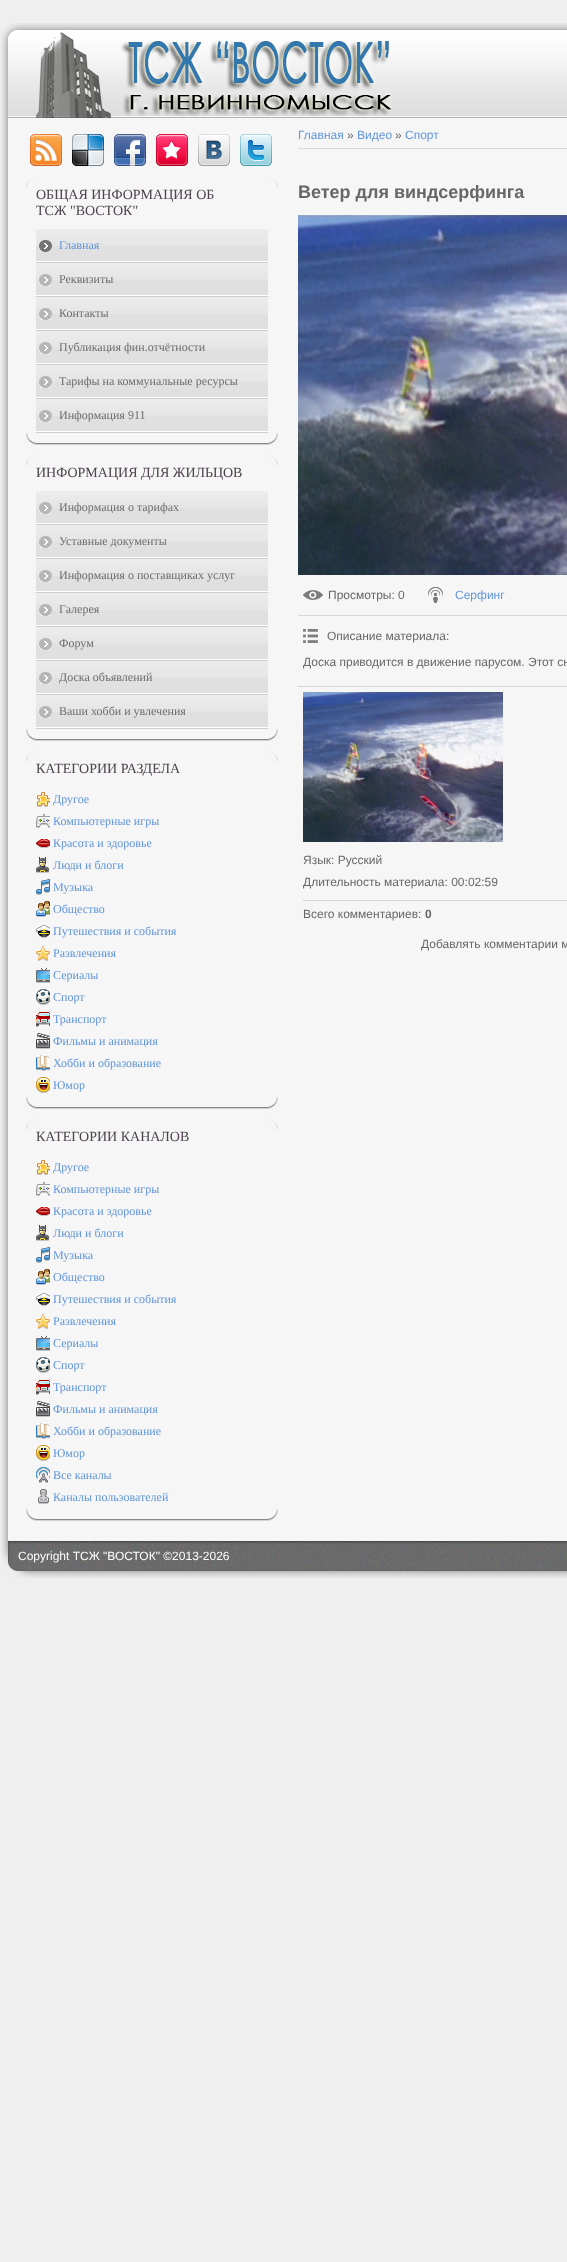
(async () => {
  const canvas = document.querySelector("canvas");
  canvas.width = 567;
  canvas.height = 2262;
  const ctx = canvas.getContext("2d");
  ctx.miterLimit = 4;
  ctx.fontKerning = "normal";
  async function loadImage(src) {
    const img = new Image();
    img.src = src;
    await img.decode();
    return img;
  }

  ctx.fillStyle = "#efefef";
  ctx.fillRect(0, 0, 567, 2262);
  ctx.drawImage(await loadImage("img/1.png"), 1, 23, 566, 95);
  ctx.drawImage(await loadImage("img/2.png"), 1, 118, 566, 1423);
  ctx.drawImage(await loadImage("img/3.png"), 30, 134, 32, 32);
  ctx.drawImage(await loadImage("img/4.png"), 72, 134, 32, 32);
  ctx.drawImage(await loadImage("img/5.png"), 114, 134, 32, 32);
  ctx.drawImage(await loadImage("img/6.png"), 156, 134, 32, 32);
  ctx.drawImage(await loadImage("img/7.png"), 198, 134, 32, 32);
  ctx.drawImage(await loadImage("img/8.png"), 240, 134, 32, 32);
  ctx.drawImage(await loadImage("img/9.png"), 26, 177, 252, 10);
  ctx.fillStyle = "#e0e0e0";
  ctx.fillRect(36, 246, 232, 15);
  ctx.drawImage(await loadImage("img/10.png"), 36, 229, 232, 17);
  ctx.fillStyle = "#cecece";
  ctx.fillRect(36, 262, 232, 1);
  ctx.fillStyle = "#ffffff";
  ctx.fillRect(36, 261, 232, 1);
  ctx.drawImage(await loadImage("img/11.png"), 39, 240, 13, 12);
  ctx.fillStyle = "#e0e0e0";
  ctx.fillRect(36, 280, 232, 15);
  ctx.drawImage(await loadImage("img/10.png"), 36, 263, 232, 17);
  ctx.fillStyle = "#cecece";
  ctx.fillRect(36, 296, 232, 1);
  ctx.fillStyle = "#ffffff";
  ctx.fillRect(36, 295, 232, 1);
  ctx.drawImage(await loadImage("img/12.png"), 39, 274, 13, 12);
  ctx.fillStyle = "#e0e0e0";
  ctx.fillRect(36, 314, 232, 15);
  ctx.drawImage(await loadImage("img/10.png"), 36, 297, 232, 17);
  ctx.fillStyle = "#cecece";
  ctx.fillRect(36, 330, 232, 1);
  ctx.fillStyle = "#ffffff";
  ctx.fillRect(36, 329, 232, 1);
  ctx.drawImage(await loadImage("img/13.png"), 39, 308, 14, 12);
  ctx.fillStyle = "#e0e0e0";
  ctx.fillRect(36, 348, 232, 15);
  ctx.drawImage(await loadImage("img/10.png"), 36, 331, 232, 17);
  ctx.fillStyle = "#cecece";
  ctx.fillRect(36, 364, 232, 1);
  ctx.fillStyle = "#ffffff";
  ctx.fillRect(36, 363, 232, 1);
  ctx.drawImage(await loadImage("img/12.png"), 39, 342, 13, 12);
  ctx.fillStyle = "#e0e0e0";
  ctx.fillRect(36, 382, 232, 15);
  ctx.drawImage(await loadImage("img/10.png"), 36, 365, 232, 17);
  ctx.fillStyle = "#cecece";
  ctx.fillRect(36, 398, 232, 1);
  ctx.fillStyle = "#ffffff";
  ctx.fillRect(36, 397, 232, 1);
  ctx.drawImage(await loadImage("img/14.png"), 39, 376, 13, 12);
  ctx.fillStyle = "#e0e0e0";
  ctx.fillRect(36, 416, 232, 15);
  ctx.drawImage(await loadImage("img/10.png"), 36, 399, 232, 17);
  ctx.fillStyle = "#cecece";
  ctx.fillRect(36, 432, 232, 1);
  ctx.fillStyle = "#ffffff";
  ctx.fillRect(36, 431, 232, 1);
  ctx.drawImage(await loadImage("img/12.png"), 39, 410, 13, 12);
  ctx.drawImage(await loadImage("img/15.png"), 26, 433, 252, 12);
  ctx.drawImage(await loadImage("img/9.png"), 26, 455, 252, 10);
  ctx.fillStyle = "#e0e0e0";
  ctx.fillRect(36, 508, 232, 15);
  ctx.drawImage(await loadImage("img/10.png"), 36, 491, 232, 17);
  ctx.fillStyle = "#cecece";
  ctx.fillRect(36, 524, 232, 1);
  ctx.fillStyle = "#ffffff";
  ctx.fillRect(36, 523, 232, 1);
  ctx.drawImage(await loadImage("img/12.png"), 39, 502, 13, 12);
  ctx.fillStyle = "#e0e0e0";
  ctx.fillRect(36, 542, 232, 15);
  ctx.drawImage(await loadImage("img/10.png"), 36, 525, 232, 17);
  ctx.fillStyle = "#cecece";
  ctx.fillRect(36, 558, 232, 1);
  ctx.fillStyle = "#ffffff";
  ctx.fillRect(36, 557, 232, 1);
  ctx.drawImage(await loadImage("img/14.png"), 39, 536, 13, 12);
  ctx.fillStyle = "#e0e0e0";
  ctx.fillRect(36, 576, 232, 15);
  ctx.drawImage(await loadImage("img/10.png"), 36, 559, 232, 17);
  ctx.fillStyle = "#cecece";
  ctx.fillRect(36, 592, 232, 1);
  ctx.fillStyle = "#ffffff";
  ctx.fillRect(36, 591, 232, 1);
  ctx.drawImage(await loadImage("img/12.png"), 39, 570, 13, 12);
  ctx.fillStyle = "#e0e0e0";
  ctx.fillRect(36, 610, 232, 15);
  ctx.drawImage(await loadImage("img/10.png"), 36, 593, 232, 17);
  ctx.fillStyle = "#cecece";
  ctx.fillRect(36, 626, 232, 1);
  ctx.fillStyle = "#ffffff";
  ctx.fillRect(36, 625, 232, 1);
  ctx.drawImage(await loadImage("img/12.png"), 39, 604, 13, 12);
  ctx.fillStyle = "#e0e0e0";
  ctx.fillRect(36, 644, 232, 15);
  ctx.drawImage(await loadImage("img/10.png"), 36, 627, 232, 17);
  ctx.fillStyle = "#cecece";
  ctx.fillRect(36, 660, 232, 1);
  ctx.fillStyle = "#ffffff";
  ctx.fillRect(36, 659, 232, 1);
  ctx.drawImage(await loadImage("img/14.png"), 39, 638, 13, 12);
  ctx.fillStyle = "#e0e0e0";
  ctx.fillRect(36, 678, 232, 15);
  ctx.drawImage(await loadImage("img/10.png"), 36, 661, 232, 17);
  ctx.fillStyle = "#cecece";
  ctx.fillRect(36, 694, 232, 1);
  ctx.fillStyle = "#ffffff";
  ctx.fillRect(36, 693, 232, 1);
  ctx.drawImage(await loadImage("img/12.png"), 39, 672, 13, 12);
  ctx.fillStyle = "#e0e0e0";
  ctx.fillRect(36, 712, 232, 15);
  ctx.drawImage(await loadImage("img/10.png"), 36, 695, 232, 17);
  ctx.fillStyle = "#cecece";
  ctx.fillRect(36, 728, 232, 1);
  ctx.fillStyle = "#ffffff";
  ctx.fillRect(36, 727, 232, 1);
  ctx.drawImage(await loadImage("img/14.png"), 39, 706, 13, 12);
  ctx.drawImage(await loadImage("img/15.png"), 26, 729, 252, 12);
  ctx.drawImage(await loadImage("img/9.png"), 26, 751, 252, 10);
  ctx.drawImage(await loadImage("img/16.png"), 37, 792, 13, 15);
  ctx.drawImage(await loadImage("img/17.png"), 36, 814, 14, 14);
  ctx.drawImage(await loadImage("img/18.png"), 36, 839, 14, 9);
  ctx.drawImage(await loadImage("img/19.png"), 36, 857, 13, 16);
  ctx.drawImage(await loadImage("img/20.png"), 36, 879, 14, 16);
  ctx.drawImage(await loadImage("img/21.png"), 36, 901, 14, 16);
  ctx.drawImage(await loadImage("img/22.png"), 36, 925, 14, 13);
  ctx.drawImage(await loadImage("img/23.png"), 36, 946, 14, 15);
  ctx.drawImage(await loadImage("img/24.png"), 36, 968, 14, 15);
  ctx.drawImage(await loadImage("img/25.png"), 36, 989, 14, 16);
  ctx.drawImage(await loadImage("img/26.png"), 36, 1012, 14, 15);
  ctx.drawImage(await loadImage("img/27.png"), 36, 1033, 14, 16);
  ctx.drawImage(await loadImage("img/28.png"), 36, 1055, 14, 16);
  ctx.drawImage(await loadImage("img/29.png"), 36, 1077, 14, 16);
  ctx.drawImage(await loadImage("img/15.png"), 26, 1097, 252, 12);
  ctx.drawImage(await loadImage("img/9.png"), 26, 1119, 252, 10);
  ctx.drawImage(await loadImage("img/16.png"), 37, 1160, 13, 15);
  ctx.drawImage(await loadImage("img/17.png"), 36, 1182, 14, 14);
  ctx.drawImage(await loadImage("img/18.png"), 36, 1207, 14, 9);
  ctx.drawImage(await loadImage("img/19.png"), 36, 1225, 13, 16);
  ctx.drawImage(await loadImage("img/20.png"), 36, 1247, 14, 16);
  ctx.drawImage(await loadImage("img/21.png"), 36, 1269, 14, 16);
  ctx.drawImage(await loadImage("img/22.png"), 36, 1293, 14, 13);
  ctx.drawImage(await loadImage("img/23.png"), 36, 1314, 14, 15);
  ctx.drawImage(await loadImage("img/24.png"), 36, 1336, 14, 15);
  ctx.drawImage(await loadImage("img/25.png"), 36, 1357, 14, 16);
  ctx.drawImage(await loadImage("img/26.png"), 36, 1380, 14, 15);
  ctx.drawImage(await loadImage("img/27.png"), 36, 1401, 14, 16);
  ctx.drawImage(await loadImage("img/28.png"), 36, 1423, 14, 16);
  ctx.drawImage(await loadImage("img/29.png"), 36, 1445, 14, 16);
  ctx.drawImage(await loadImage("img/30.png"), 36, 1467, 14, 16);
  ctx.drawImage(await loadImage("img/31.png"), 38, 1489, 11, 15);
  ctx.drawImage(await loadImage("img/15.png"), 26, 1509, 252, 12);
  ctx.fillStyle = "#d6d6d6";
  ctx.fillRect(298, 148, 269, 1);
  ctx.drawImage(await loadImage("img/32.png"), 298, 215, 269, 360);
  ctx.drawImage(await loadImage("img/33.png"), 303, 590, 20, 10);
  ctx.drawImage(await loadImage("img/34.png"), 428, 587, 15, 16);
  ctx.fillRect(298, 615, 269, 1);
  ctx.drawImage(await loadImage("img/35.png"), 303, 629, 15, 14);
  ctx.fillRect(298, 686, 269, 1);
  ctx.drawImage(await loadImage("img/36.png"), 303, 692, 200, 150);
  ctx.fillRect(303, 900, 264, 1);
  ctx.drawImage(await loadImage("img/37.png"), 1, 1541, 566, 37);
  ctx.font = "14px Liberation Serif";
  ctx.fillStyle = "#4d424e";
  ctx.fillText("ОБЩАЯ ИНФОРМАЦИЯ ОБ", 36, 199);
  ctx.fillText("ТСЖ \"ВОСТОК\"", 36, 215);
  ctx.font = "12px Liberation Serif";
  ctx.fillStyle = "#6196da";
  ctx.fillText("Главная", 59, 249);
  ctx.fillStyle = "#6e6e6e";
  for (const [text, x, y] of [
    ["Реквизиты", 59, 283],
    ["Контакты", 59, 317],
    ["Публикация фин.отчётности", 59, 351],
    ["Тарифы на коммунальные ресурсы", 59, 385],
    ["Информация 911", 59, 419],
  ]) {
    ctx.fillText(text, x, y);
  }
  ctx.font = "14px Liberation Serif";
  ctx.fillStyle = "#4d424e";
  ctx.fillText("ИНФОРМАЦИЯ ДЛЯ ЖИЛЬЦОВ", 36, 477);
  ctx.font = "12px Liberation Serif";
  ctx.fillStyle = "#6e6e6e";
  for (const [text, x, y] of [
    ["Информация о тарифах", 59, 511],
    ["Уставные документы", 59, 545],
    ["Информация о поставщиках услуг", 59, 579],
    ["Галерея", 59, 613],
    ["Форум", 59, 647],
    ["Доска объявлений", 59, 681],
    ["Ваши хобби и увлечения", 59, 715],
  ]) {
    ctx.fillText(text, x, y);
  }
  ctx.font = "14px Liberation Serif";
  ctx.fillStyle = "#4d424e";
  ctx.fillText("КАТЕГОРИИ РАЗДЕЛА", 36, 773);
  ctx.font = "12px Liberation Serif";
  ctx.fillStyle = "#6196da";
  for (const [text, x, y] of [
    ["Другое", 53, 803],
    ["Компьютерные игры", 53, 825],
    ["Красота и здоровье", 53, 847],
    ["Люди и блоги", 53, 869],
    ["Музыка", 53, 891],
    ["Общество", 53, 913],
    ["Путешествия и события", 53, 935],
    ["Развлечения", 53, 957],
    ["Сериалы", 53, 979],
    ["Спорт", 53, 1001],
    ["Транспорт", 53, 1023],
    ["Фильмы и анимация", 53, 1045],
    ["Хобби и образование", 53, 1067],
    ["Юмор", 53, 1089],
  ]) {
    ctx.fillText(text, x, y);
  }
  ctx.font = "14px Liberation Serif";
  ctx.fillStyle = "#4d424e";
  ctx.fillText("КАТЕГОРИИ КАНАЛОВ", 36, 1141);
  ctx.font = "12px Liberation Serif";
  ctx.fillStyle = "#6196da";
  for (const [text, x, y] of [
    ["Другое", 53, 1171],
    ["Компьютерные игры", 53, 1193],
    ["Красота и здоровье", 53, 1215],
    ["Люди и блоги", 53, 1237],
    ["Музыка", 53, 1259],
    ["Общество", 53, 1281],
    ["Путешествия и события", 53, 1303],
    ["Развлечения", 53, 1325],
    ["Сериалы", 53, 1347],
    ["Спорт", 53, 1369],
    ["Транспорт", 53, 1391],
    ["Фильмы и анимация", 53, 1413],
    ["Хобби и образование", 53, 1435],
    ["Юмор", 53, 1457],
    ["Все каналы", 53, 1479],
    ["Каналы пользователей", 53, 1501],
  ]) {
    ctx.fillText(text, x, y);
  }
  ctx.font = "12px Liberation Sans";
  ctx.fillText("Главная", 298, 139);
  ctx.fillStyle = "#676767";
  ctx.fillText("»", 347, 139);
  ctx.fillStyle = "#6196da";
  ctx.fillText("Видео", 357, 139);
  ctx.fillStyle = "#676767";
  ctx.fillText("»", 395, 139);
  ctx.fillStyle = "#6196da";
  ctx.fillText("Спорт", 405, 139);
  ctx.font = "bold 18px Liberation Sans";
  ctx.fillStyle = "#676767";
  ctx.fillText("Ветер для виндсерфинга", 298, 198);
  ctx.font = "12px Liberation Sans";
  ctx.fillText("Просмотры: 0", 328, 599);
  ctx.fillStyle = "#6196da";
  ctx.fillText("Серфинг", 455, 599);
  ctx.fillStyle = "#676767";
  for (const [text, x, y] of [
    ["Описание материала:", 327, 640],
    ["Доска приводится в движение парусом. Этот сн", 303, 666],
    ["Язык: Русский", 303, 864],
    ["Длительность материала: 00:02:59", 303, 886],
    ["Всего комментариев:", 303, 918],
  ]) {
    ctx.fillText(text, x, y);
  }
  ctx.font = "bold 12px Liberation Sans";
  ctx.fillText("0", 425, 918);
  ctx.font = "12px Liberation Sans";
  ctx.fillText("Добавлять комментарии м", 421, 948);
  ctx.fillStyle = "#ffffff";
  ctx.fillText("Copyright ТСЖ \"ВОСТОК\" ©2013-2026", 18, 1560);
})();
